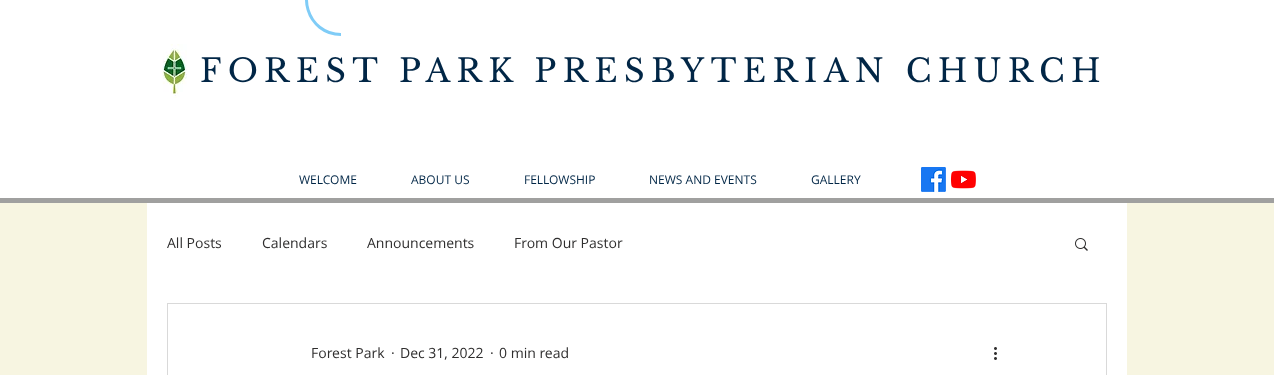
(async () => {
  const canvas = document.querySelector("canvas");
  canvas.width = 1274;
  canvas.height = 375;
  const ctx = canvas.getContext("2d");
  ctx.miterLimit = 4;
  ctx.fontKerning = "normal";
  async function loadImage(src) {
    const img = new Image();
    img.src = src;
    await img.decode();
    return img;
  }
  let path;

  ctx.fillStyle = "#f7f5e1";
  ctx.fillRect(0, 0, 1274, 375);
  ctx.fillStyle = "#ffffff";
  ctx.fillRect(0, 0, 1274, 198);
  ctx.fillStyle = "#a0a09f";
  ctx.fillRect(0, 198, 1274, 5);
  path = new Path2D("M341 34.5C307 34.5 293.5-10 322-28.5C327.5-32.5 334-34.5 341-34.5");
  ctx.strokeStyle = "#7fccf7";
  ctx.lineWidth = 3;
  ctx.stroke(path);
  ctx.drawImage(await loadImage("img/1.png"), 162, 44, 25, 54);
  ctx.drawImage(await loadImage("img/2.png"), 921, 167, 25, 25);
  ctx.drawImage(await loadImage("img/3.png"), 951, 170, 25, 19);
  ctx.fillStyle = "#ffffff";
  ctx.fillRect(147, 203, 980, 172);
  ctx.drawImage(await loadImage("img/4.png"), 1075, 238, 13, 13);
  ctx.strokeStyle = "#d9d9d9";
  ctx.lineWidth = 1;
  ctx.strokeRect(167.5, 303.5, 939, 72);
  ctx.drawImage(await loadImage("img/5.png"), 994, 347, 3, 13);
  ctx.letterSpacing = "6.4px";
  ctx.font = "32px Libre Baskerville";
  ctx.fillStyle = "#012646";
  ctx.fillText("FOREST PARK PRESBYTERIAN CHURCH", 200, 82);
  ctx.letterSpacing = "0px";
  ctx.font = "12px Open Sans";
  for (const [text, x, y] of [
    ["WELCOME", 299, 184],
    ["ABOUT US", 411, 184],
    ["FELLOWSHIP", 524, 184],
    ["NEWS AND EVENTS", 649, 184],
    ["GALLERY", 811, 184],
  ]) {
    ctx.fillText(text, x, y);
  }
  ctx.font = "14px Open Sans";
  ctx.fillStyle = "#2f2e2e";
  for (const [text, x, y] of [
    ["All Posts", 167, 248],
    ["Calendars", 262, 248],
    ["Announcements", 367, 248],
    ["From Our Pastor", 514, 248],
    ["Forest Park", 311, 358],
    ["·", 391, 358],
    ["Dec 31, 2022", 400, 358],
    ["·", 490, 358],
    ["0 min read", 499, 358],
  ]) {
    ctx.fillText(text, x, y);
  }
})();
